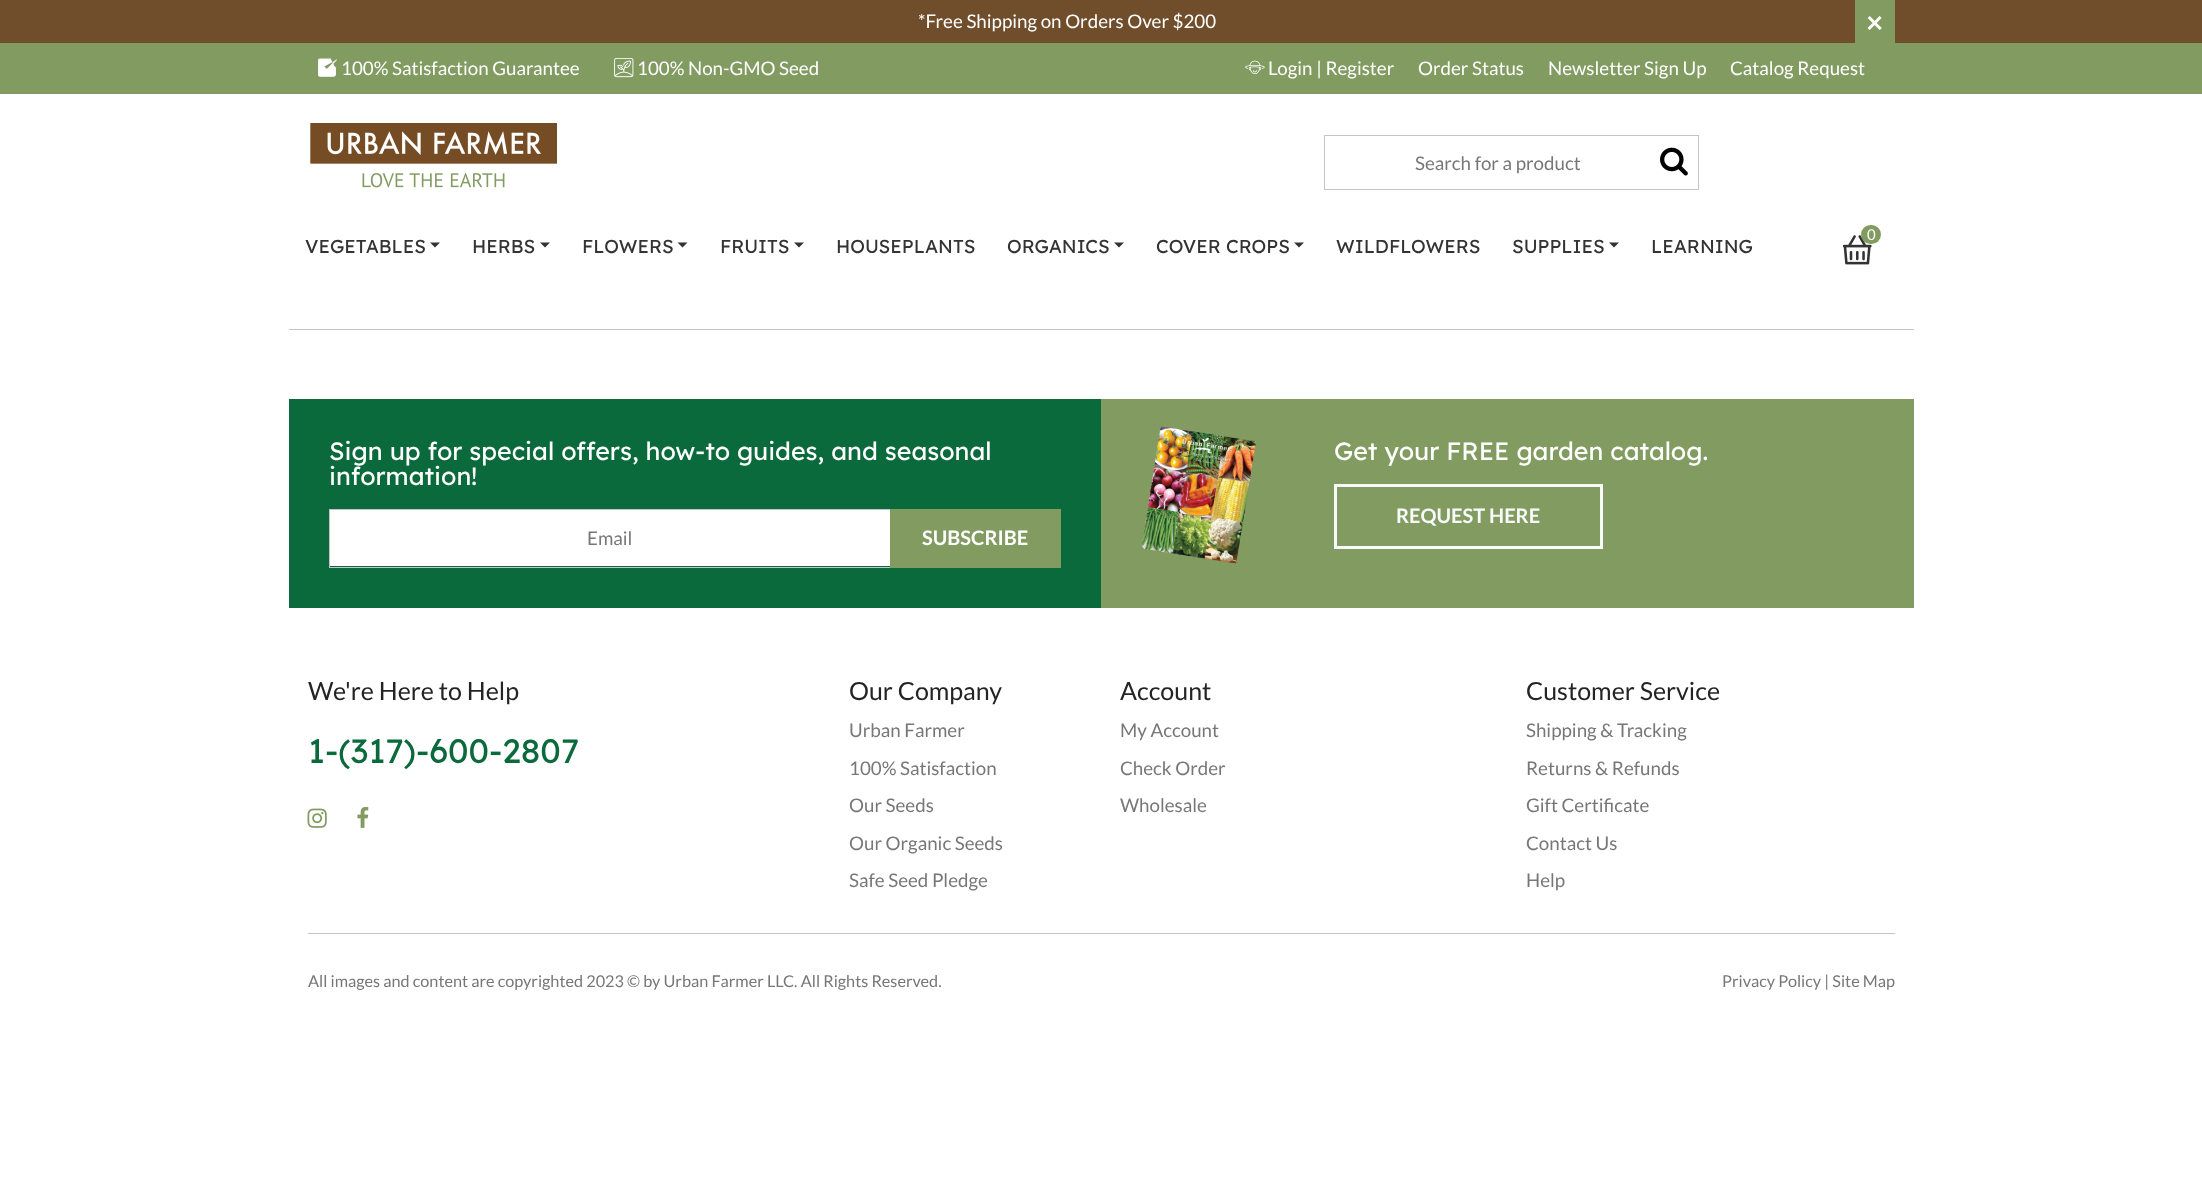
(async () => {
  const canvas = document.querySelector("canvas");
  canvas.width = 2202;
  canvas.height = 1180;
  const ctx = canvas.getContext("2d");
  ctx.miterLimit = 4;
  ctx.fontKerning = "normal";
  async function loadImage(src) {
    const img = new Image();
    img.src = src;
    await img.decode();
    return img;
  }
  let path;

  ctx.fillStyle = "#ffffff";
  ctx.fillRect(0, 0, 2202, 1180);
  for (const [x, y, w, h, color] of [
    [0, 0, 2202, 43, "#704e2b"],
    [1855, 0, 40, 43, "#819b61"],
    [0, 43, 2202, 51, "#819b61"],
  ]) {
    ctx.fillStyle = color;
    ctx.fillRect(x, y, w, h);
  }
  ctx.drawImage(await loadImage("img/1.png"), 318, 58, 19, 19);
  ctx.drawImage(await loadImage("img/2.png"), 614, 58, 20, 20);
  ctx.drawImage(await loadImage("img/3.png"), 1245, 60, 20, 15);
  ctx.drawImage(await loadImage("img/4.png"), 310, 123, 247, 65);
  ctx.strokeStyle = "#c4c4c4";
  ctx.strokeRect(1324.5, 135.5, 374, 54);
  ctx.drawImage(await loadImage("img/5.png"), 1660, 147, 28, 29);
  ctx.drawImage(await loadImage("img/6.png"), 1843, 235, 29, 30);
  ctx.beginPath();
  ctx.roundRect(1861, 225, 20, 19, 9.5);
  ctx.fill();
  ctx.fillStyle = "#333333";
  path = new Path2D("M430 242.5H440L435 247.5Z");
  ctx.fill(path);
  path = new Path2D("M540 242.5H550L545 247.5Z");
  ctx.fill(path);
  path = new Path2D("M677.5 242.5H687.5L682.5 247.5Z");
  ctx.fill(path);
  path = new Path2D("M794 242.5H804L799 247.5Z");
  ctx.fill(path);
  path = new Path2D("M1114 242.5H1124L1119 247.5Z");
  ctx.fill(path);
  path = new Path2D("M1294 242.5H1304L1299 247.5Z");
  ctx.fill(path);
  path = new Path2D("M1609 242.5H1619L1614 247.5Z");
  ctx.fill(path);
  for (const [x, y, w, h, color] of [
    [289, 329, 1625, 1, "#c4c4c4"],
    [289, 399, 812, 209, "#0b6a3c"],
    [330, 510, 560, 56, "#ffffff"],
  ]) {
    ctx.fillStyle = color;
    ctx.fillRect(x, y, w, h);
  }
  ctx.strokeRect(329.5, 509.5, 561, 58);
  ctx.fillStyle = "#819b61";
  ctx.fillRect(890, 509, 171, 59);
  ctx.fillRect(1101, 399, 813, 209);
  ctx.drawImage(await loadImage("img/7.png"), 1141, 426, 116, 138);
  ctx.strokeStyle = "#f8f9fa";
  ctx.lineWidth = 3;
  ctx.strokeRect(1335.5, 485.5, 266, 62);
  ctx.drawImage(await loadImage("img/8.png"), 307, 808, 20, 20);
  ctx.drawImage(await loadImage("img/9.png"), 357, 807, 12, 21);
  ctx.fillStyle = "#c4c4c4";
  ctx.fillRect(308, 933, 1587, 1);
  ctx.font = "18.75px Lato";
  ctx.fillStyle = "#ffffff";
  ctx.fillText("*Free Shipping on Orders Over $200", 918, 28);
  ctx.font = "bold 30px Lato";
  ctx.fillText("×", 1866, 33);
  ctx.font = "18.75px Lato";
  for (const [text, x, y] of [
    ["100% Satisfaction Guarantee", 341, 75],
    ["100% Non-GMO Seed", 637, 75],
    ["Login | Register", 1268, 75],
    ["Order Status", 1418, 75],
    ["Newsletter Sign Up", 1548, 75],
    ["Catalog Request", 1730, 75],
  ]) {
    ctx.fillText(text, x, y);
  }
  ctx.fillStyle = "#777777";
  ctx.fillText("Search for a product", 1415, 170);
  ctx.font = "15px Lato";
  ctx.fillStyle = "#ffffff";
  ctx.fillText("0", 1867, 240);
  ctx.font = "18.75px Lexend Deca";
  ctx.fillStyle = "#333333";
  for (const [text, x, y] of [
    ["VEGETABLES", 305, 253],
    ["HERBS", 472, 253],
    ["FLOWERS", 582, 253],
    ["FRUITS", 720, 253],
    ["HOUSEPLANTS", 836, 253],
    ["ORGANICS", 1007, 253],
    ["COVER CROPS", 1156, 253],
    ["WILDFLOWERS", 1336, 253],
    ["SUPPLIES", 1512, 253],
    ["LEARNING", 1651, 253],
  ]) {
    ctx.fillText(text, x, y);
  }
  ctx.font = "25px Lexend Deca";
  ctx.fillStyle = "#ffffff";
  ctx.fillText("Sign up for special offers, how-to guides, and seasonal", 329, 460);
  ctx.fillText("information!", 329, 485);
  ctx.font = "18.75px Lato";
  ctx.fillStyle = "#777777";
  ctx.fillText("Email", 587, 545);
  ctx.font = "bold 20px Lato";
  ctx.fillStyle = "#ffffff";
  ctx.fillText("SUBSCRIBE", 922, 545);
  ctx.font = "25px Lexend Deca";
  ctx.fillText("Get your FREE garden catalog.", 1334, 460);
  ctx.font = "bold 20px Lato";
  ctx.fillStyle = "#f8f9fa";
  ctx.fillText("REQUEST HERE", 1396, 523);
  ctx.font = "25px Lato";
  ctx.fillStyle = "#242424";
  ctx.fillText("We're Here to Help", 308, 700);
  ctx.font = "33.75px Lexend Deca";
  ctx.fillStyle = "#0b6a3c";
  ctx.fillText("1-(317)-600-2807", 308, 763);
  ctx.font = "25px Lato";
  ctx.fillStyle = "#242424";
  ctx.fillText("Our Company", 849, 700);
  ctx.font = "18.75px Lato";
  ctx.fillStyle = "#777777";
  for (const [text, x, y] of [
    ["Urban Farmer", 849, 737],
    ["100% Satisfaction", 849, 775],
    ["Our Seeds", 849, 812],
    ["Our Organic Seeds", 849, 850],
    ["Safe Seed Pledge", 849, 887],
  ]) {
    ctx.fillText(text, x, y);
  }
  ctx.font = "25px Lato";
  ctx.fillStyle = "#242424";
  ctx.fillText("Account", 1120, 700);
  ctx.font = "18.75px Lato";
  ctx.fillStyle = "#777777";
  for (const [text, x, y] of [
    ["My Account", 1120, 737],
    ["Check Order", 1120, 775],
    ["Wholesale", 1120, 812],
  ]) {
    ctx.fillText(text, x, y);
  }
  ctx.font = "25px Lato";
  ctx.fillStyle = "#242424";
  ctx.fillText("Customer Service", 1526, 700);
  ctx.font = "18.75px Lato";
  ctx.fillStyle = "#777777";
  for (const [text, x, y] of [
    ["Shipping & Tracking", 1526, 737],
    ["Returns & Refunds", 1526, 775],
    ["Gift Certificate", 1526, 812],
    ["Contact Us", 1526, 850],
    ["Help", 1526, 887],
  ]) {
    ctx.fillText(text, x, y);
  }
  ctx.font = "16.25px Lato";
  ctx.fillText("All images and content are copyrighted 2023 © by Urban Farmer LLC. All Rights Reserved.", 308, 987);
  ctx.fillText("Privacy Policy | Site Map", 1722, 987);
})();
